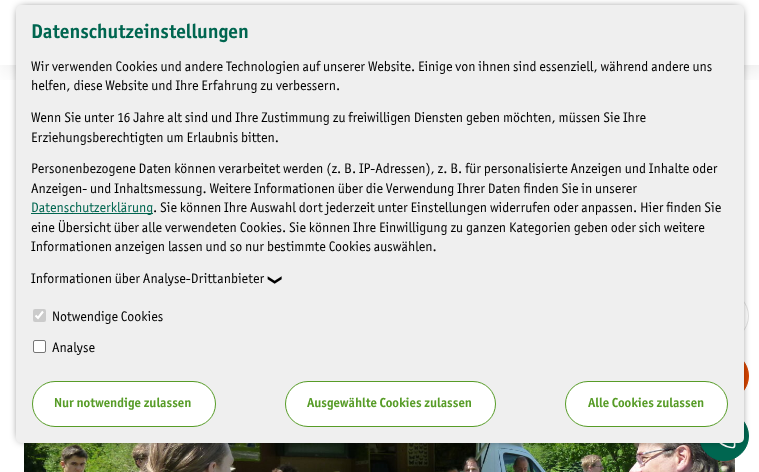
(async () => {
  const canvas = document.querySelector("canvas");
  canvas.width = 759;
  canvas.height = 472;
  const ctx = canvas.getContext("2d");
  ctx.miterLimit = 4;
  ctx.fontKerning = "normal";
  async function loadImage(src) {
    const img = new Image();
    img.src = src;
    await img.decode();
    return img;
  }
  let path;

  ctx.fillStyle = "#ffffff";
  ctx.fillRect(0, 0, 759, 472);
  ctx.save();
  ctx.beginPath();
  ctx.rect(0, 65, 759, 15);
  ctx.clip();
  ctx.fillStyle = "rgba(0, 0, 0, 0.1)";
  ctx.filter = "blur(12.5px)";
  ctx.beginPath();
  ctx.rect(5, 5, 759, 65);
  ctx.fill();
  ctx.filter = "none";
  ctx.restore();
  ctx.beginPath();
  ctx.arc(724, 316, 24.5, 0, Math.PI * 2);
  ctx.strokeStyle = "#e3e3e3";
  ctx.stroke();
  ctx.fillStyle = "#d54400";
  ctx.beginPath();
  ctx.arc(724, 376, 24.5, 0, Math.PI * 2);
  ctx.fill();
  ctx.strokeStyle = "#d54400";
  ctx.stroke();
  ctx.drawImage(await loadImage("img/2.png"), 24, 443, 711, 29);
  ctx.fillStyle = "#006650";
  ctx.beginPath();
  ctx.arc(724, 436, 24.5, 0, Math.PI * 2);
  ctx.fill();
  ctx.strokeStyle = "#006650";
  ctx.stroke();
  ctx.drawImage(await loadImage("img/1.png"), 719, 443, 17, 6);
  ctx.fillStyle = "rgba(0, 0, 0, 0.9)";
  ctx.filter = "blur(5px)";
  ctx.beginPath();
  ctx.roundRect(20, 9, 720, 430, 1);
  ctx.fill();
  ctx.filter = "none";
  ctx.fillStyle = "#efefef";
  ctx.beginPath();
  ctx.roundRect(16, 5, 728, 438, 5);
  ctx.fill();
  ctx.fillStyle = "#006650";
  ctx.fillRect(31, 213, 122, 1);
  ctx.fillStyle = "#cbcbcb";
  ctx.beginPath();
  ctx.roundRect(33, 309, 13, 13, 2);
  ctx.fill();
  path = new Path2D("M35.5 315.5L38 318L43 311.5");
  ctx.strokeStyle = "#ffffff";
  ctx.lineWidth = 2.1;
  ctx.stroke(path);
  ctx.fillStyle = "#ffffff";
  ctx.beginPath();
  ctx.roundRect(33.5, 340.5, 12, 12, 1.5);
  ctx.fill();
  ctx.strokeStyle = "#767676";
  ctx.lineWidth = 1;
  ctx.stroke();
  ctx.beginPath();
  ctx.roundRect(32.5, 381.5, 183, 45, 22.5);
  ctx.fill();
  ctx.strokeStyle = "#579c27";
  ctx.stroke();
  ctx.beginPath();
  ctx.roundRect(285.5, 381.5, 210, 45, 22.5);
  ctx.fill();
  ctx.stroke();
  ctx.beginPath();
  ctx.roundRect(565.5, 381.5, 162, 45, 22.5);
  ctx.fill();
  ctx.stroke();
  ctx.font = "bold 20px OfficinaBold";
  ctx.fillStyle = "#006650";
  ctx.fillText("Datenschutzeinstellungen", 31, 38);
  ctx.font = "14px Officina";
  ctx.fillStyle = "#000000";
  for (const [text, x, y] of [
    ["Wir verwenden Cookies und andere Technologien auf unserer Website. Einige von ihnen sind essenziell, während andere uns", 31, 71],
    ["helfen, diese Website und Ihre Erfahrung zu verbessern.", 31, 90],
    ["Wenn Sie unter 16 Jahre alt sind und Ihre Zustimmung zu freiwilligen Diensten geben möchten, müssen Sie Ihre", 31, 122],
    ["Erziehungsberechtigten um Erlaubnis bitten.", 31, 142],
    ["Personenbezogene Daten können verarbeitet werden (z. B. IP-Adressen), z. B. für personalisierte Anzeigen und Inhalte oder", 31, 173],
    ["Anzeigen- und Inhaltsmessung. Weitere Informationen über die Verwendung Ihrer Daten finden Sie in unserer", 31, 193],
  ]) {
    ctx.fillText(text, x, y);
  }
  ctx.fillStyle = "#006650";
  ctx.fillText("Datenschutzerklärung", 31, 212);
  ctx.fillStyle = "#000000";
  for (const [text, x, y] of [
    [". Sie können Ihre Auswahl dort jederzeit unter Einstellungen widerrufen oder anpassen. Hier finden Sie", 153, 212],
    ["eine Übersicht über alle verwendeten Cookies. Sie können Ihre Einwilligung zu ganzen Kategorien geben oder sich weitere", 31, 232],
    ["Informationen anzeigen lassen und so nur bestimmte Cookies auswählen.", 31, 251],
    ["Informationen über Analyse-Drittanbieter", 31, 283],
  ]) {
    ctx.fillText(text, x, y);
  }
  ctx.font = "14px DejaVu Sans";
  ctx.save();
  ctx.translate(271, 274);
  ctx.rotate(90 * Math.PI / 180);
  ctx.fillText("❯", 0, 0);
  ctx.restore();
  ctx.font = "14px Officina";
  ctx.fillText("Notwendige Cookies", 52, 321);
  ctx.fillText("Analyse", 52, 352);
  ctx.font = "bold 13.25px OfficinaBold";
  ctx.fillStyle = "#579c27";
  for (const [text, x, y] of [
    ["Nur notwendige zulassen", 54, 407],
    ["Ausgewählte Cookies zulassen", 307, 407],
    ["Alle Cookies zulassen", 588, 407],
  ]) {
    ctx.fillText(text, x, y);
  }
})();
